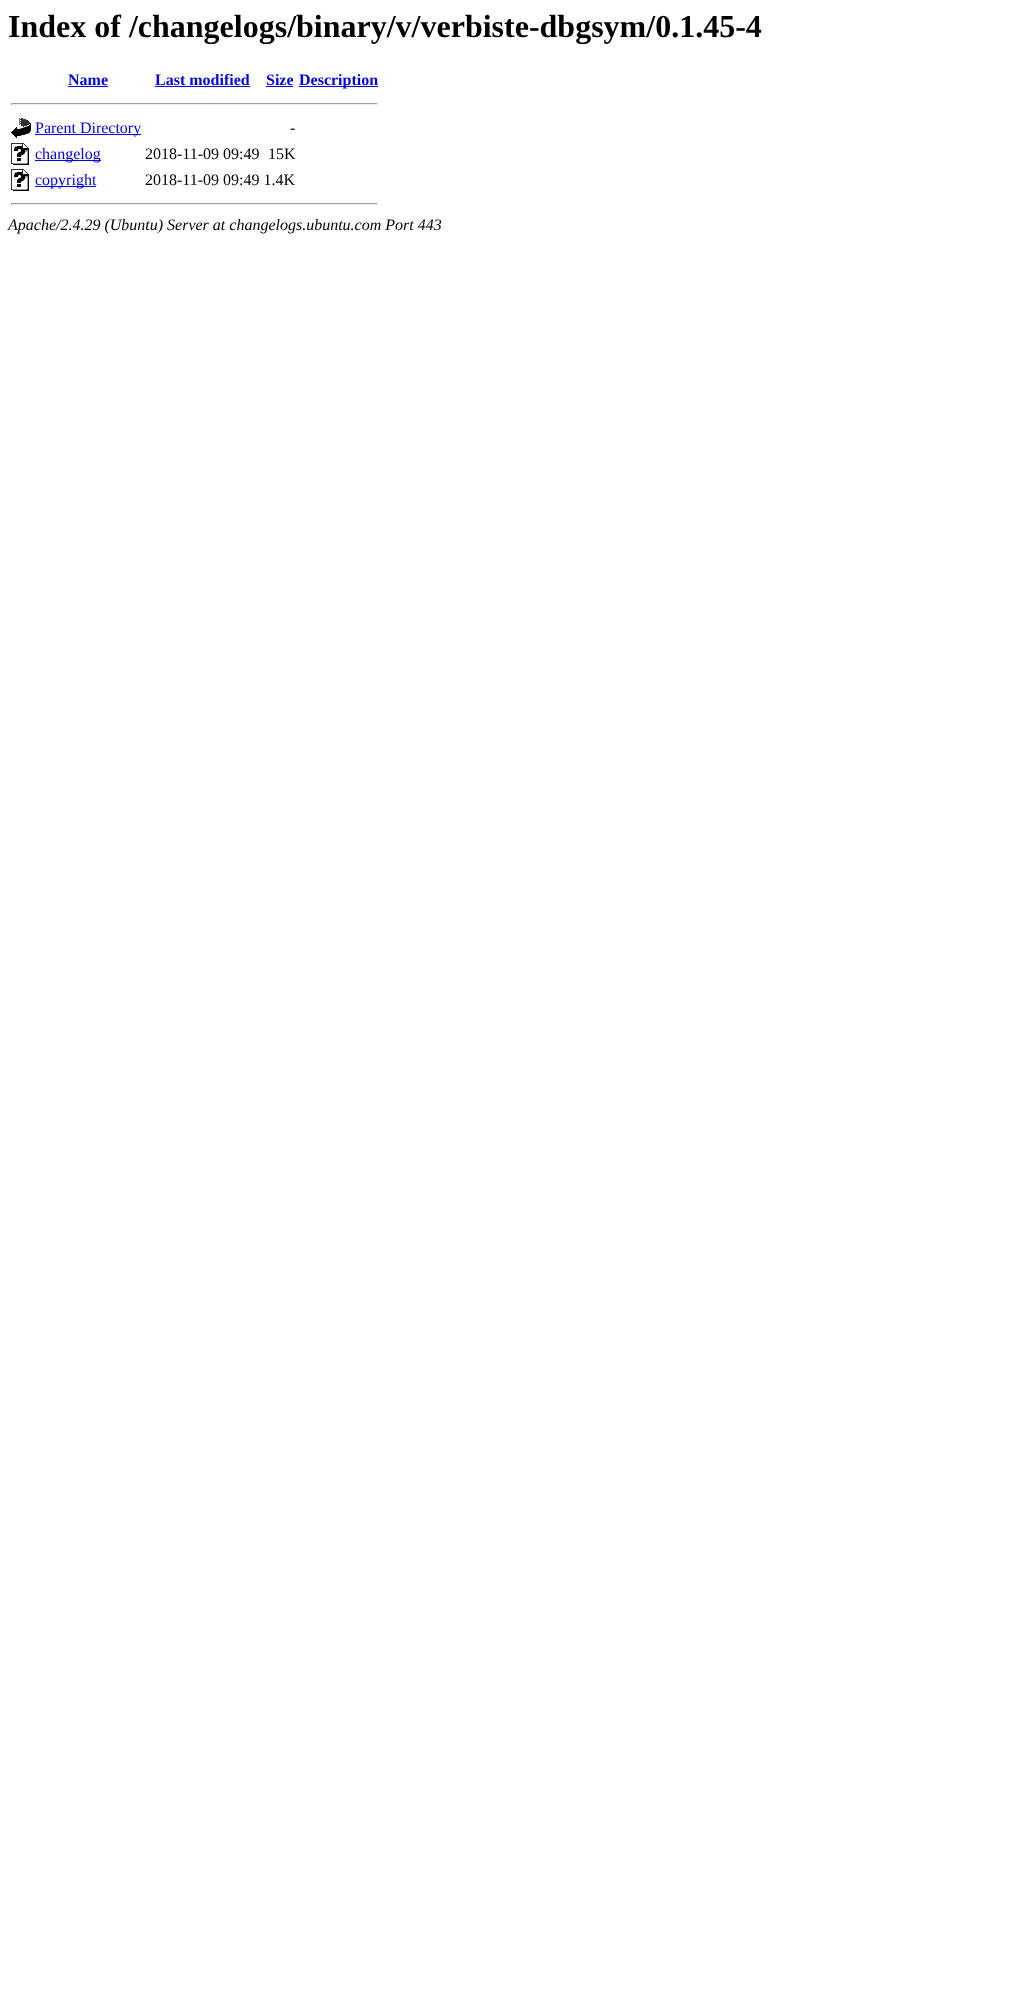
(async () => {
  const canvas = document.querySelector("canvas");
  canvas.width = 1010;
  canvas.height = 1993;
  const ctx = canvas.getContext("2d");
  ctx.miterLimit = 4;
  ctx.fontKerning = "normal";
  async function loadImage(src) {
    const img = new Image();
    img.src = src;
    await img.decode();
    return img;
  }

  ctx.fillStyle = "#ffffff";
  ctx.fillRect(0, 0, 1010, 1993);
  for (const [x, y, w, h, color] of [
    [68, 86, 40, 1, "#0000ee"],
    [155, 86, 95, 1, "#0000ee"],
    [266, 86, 27, 1, "#0000ee"],
    [299, 86, 79, 1, "#0000ee"],
    [11, 103, 367, 1, "#9f9f9f"],
    [377, 103, 1, 2, "#eeeeee"],
    [11, 104, 367, 1, "#eeeeee"],
    [11, 103, 1, 2, "#9f9f9f"],
  ]) {
    ctx.fillStyle = color;
    ctx.fillRect(x, y, w, h);
  }
  ctx.drawImage(await loadImage("img/1.png"), 11, 118, 20, 20);
  ctx.fillStyle = "#0000ee";
  ctx.fillRect(35, 134, 106, 1);
  ctx.drawImage(await loadImage("img/2.png"), 11, 143, 18, 22);
  ctx.fillRect(35, 160, 66, 1);
  ctx.drawImage(await loadImage("img/2.png"), 11, 169, 18, 22);
  for (const [x, y, w, h, color] of [
    [35, 186, 61, 1, "#0000ee"],
    [11, 203, 367, 1, "#9f9f9f"],
    [377, 203, 1, 2, "#eeeeee"],
    [11, 204, 367, 1, "#eeeeee"],
    [11, 203, 1, 2, "#9f9f9f"],
  ]) {
    ctx.fillStyle = color;
    ctx.fillRect(x, y, w, h);
  }
  ctx.font = "bold 32px Liberation Serif";
  ctx.fillStyle = "#000000";
  ctx.fillText("Index of /changelogs/binary/v/verbiste-dbgsym/0.1.45-4", 8, 37);
  ctx.font = "bold 16px Liberation Serif";
  ctx.fillStyle = "#0000ee";
  for (const [text, x, y] of [
    ["Name", 68, 85],
    ["Last modified", 155, 85],
    ["Size", 266, 85],
    ["Description", 299, 85],
  ]) {
    ctx.fillText(text, x, y);
  }
  ctx.font = "16px Liberation Serif";
  ctx.fillText("Parent Directory", 35, 133);
  ctx.fillStyle = "#000000";
  ctx.fillText("-", 290, 133);
  ctx.fillStyle = "#0000ee";
  ctx.fillText("changelog", 35, 159);
  ctx.fillStyle = "#000000";
  ctx.fillText("2018-11-09 09:49", 145, 159);
  ctx.fillText("15K", 268, 159);
  ctx.fillStyle = "#0000ee";
  ctx.fillText("copyright", 35, 185);
  ctx.fillStyle = "#000000";
  ctx.fillText("2018-11-09 09:49 1.4K", 145, 185);
  ctx.font = "italic 16px Liberation Serif";
  ctx.fillText("Apache/2.4.29 (Ubuntu) Server at changelogs.ubuntu.com Port 443", 8, 230);
})();
